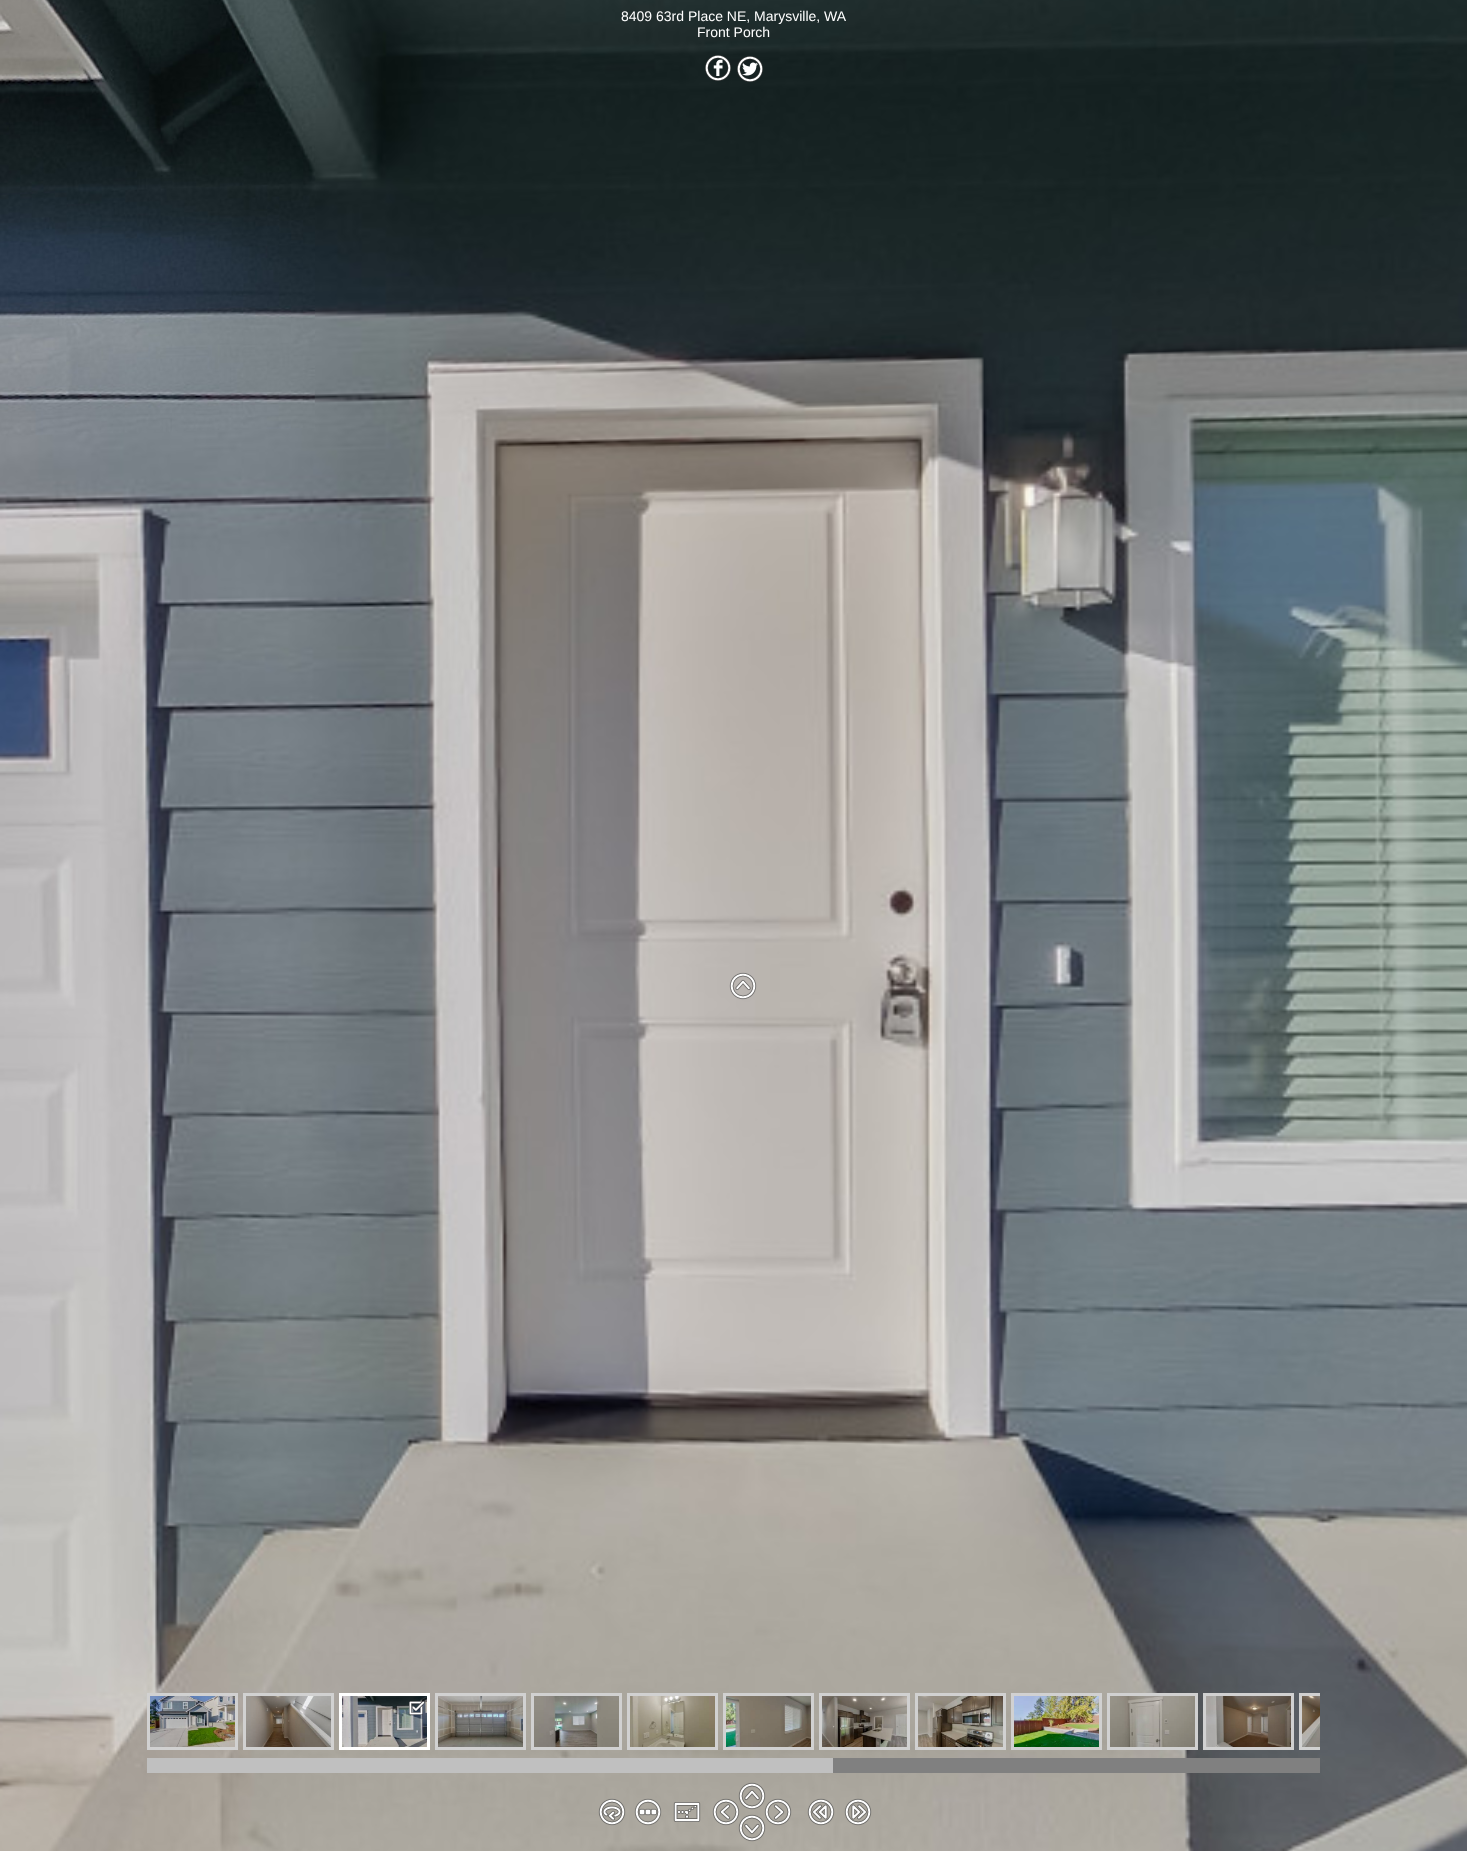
(async () => {
  const canvas = document.querySelector("canvas");
  canvas.width = 1467;
  canvas.height = 1851;
  const ctx = canvas.getContext("2d");
  ctx.miterLimit = 4;
  ctx.fontKerning = "normal";
  async function loadImage(src) {
    const img = new Image();
    img.src = src;
    await img.decode();
    return img;
  }

  ctx.fillStyle = "#ffffff";
  ctx.fillRect(0, 0, 1467, 1851);
  ctx.drawImage(await loadImage("img/1.png"), 0, 0, 1467, 1851);
  ctx.drawImage(await loadImage("img/2.png"), 705, 55, 26, 26);
  ctx.drawImage(await loadImage("img/3.png"), 713, 59, 10, 17);
  ctx.drawImage(await loadImage("img/4.png"), 737, 56, 26, 26);
  ctx.drawImage(await loadImage("img/5.png"), 742, 62, 16, 14);
  ctx.drawImage(await loadImage("img/6.png"), 729, 972, 28, 28);
  ctx.drawImage(await loadImage("img/7.png"), 150, 1696, 85, 51);
  ctx.strokeStyle = "#d1d1d1";
  ctx.lineWidth = 3;
  ctx.strokeRect(148.5, 1694.5, 88, 54);
  ctx.drawImage(await loadImage("img/8.png"), 246, 1696, 85, 51);
  ctx.strokeRect(244.5, 1694.5, 88, 54);
  ctx.drawImage(await loadImage("img/10.png"), 342, 1696, 85, 51);
  ctx.strokeStyle = "#ffffff";
  ctx.strokeRect(340.5, 1694.5, 88, 54);
  ctx.drawImage(await loadImage("img/9.png"), 409, 1701, 16, 14);
  ctx.drawImage(await loadImage("img/11.png"), 438, 1696, 85, 51);
  ctx.strokeStyle = "#d1d1d1";
  ctx.strokeRect(436.5, 1694.5, 88, 54);
  ctx.drawImage(await loadImage("img/12.png"), 534, 1696, 85, 51);
  ctx.strokeRect(532.5, 1694.5, 88, 54);
  ctx.drawImage(await loadImage("img/13.png"), 630, 1696, 85, 51);
  ctx.strokeRect(628.5, 1694.5, 88, 54);
  ctx.drawImage(await loadImage("img/14.png"), 726, 1696, 85, 51);
  ctx.strokeRect(724.5, 1694.5, 88, 54);
  ctx.drawImage(await loadImage("img/15.png"), 822, 1696, 85, 51);
  ctx.strokeRect(820.5, 1694.5, 88, 54);
  ctx.drawImage(await loadImage("img/16.png"), 918, 1696, 85, 51);
  ctx.strokeRect(916.5, 1694.5, 88, 54);
  ctx.drawImage(await loadImage("img/17.png"), 1014, 1696, 85, 51);
  ctx.strokeRect(1012.5, 1694.5, 88, 54);
  ctx.drawImage(await loadImage("img/18.png"), 1110, 1696, 85, 51);
  ctx.strokeRect(1108.5, 1694.5, 88, 54);
  ctx.drawImage(await loadImage("img/19.png"), 1206, 1696, 85, 51);
  ctx.strokeRect(1204.5, 1694.5, 88, 54);
  ctx.drawImage(await loadImage("img/20.png"), 1302, 1696, 18, 51);
  ctx.save();
  ctx.beginPath();
  ctx.rect(147, 1689, 1173, 84);
  ctx.clip();
  ctx.strokeRect(1300.5, 1694.5, 88, 54);
  ctx.restore();
  ctx.fillStyle = "#808080";
  ctx.fillRect(833, 1758, 487, 15);
  ctx.fillStyle = "#c0c0c0";
  ctx.fillRect(147, 1758, 686, 15);
  ctx.drawImage(await loadImage("img/21.png"), 598, 1798, 28, 28);
  ctx.drawImage(await loadImage("img/22.png"), 634, 1798, 28, 28);
  ctx.drawImage(await loadImage("img/23.png"), 673, 1802, 28, 20);
  ctx.drawImage(await loadImage("img/24.png"), 712, 1798, 28, 28);
  ctx.drawImage(await loadImage("img/26.png"), 764, 1798, 28, 28);
  ctx.drawImage(await loadImage("img/25.png"), 738, 1782, 28, 28);
  ctx.drawImage(await loadImage("img/27.png"), 738, 1814, 28, 28);
  ctx.drawImage(await loadImage("img/28.png"), 807, 1798, 28, 28);
  ctx.drawImage(await loadImage("img/29.png"), 844, 1798, 28, 28);
  ctx.font = "14px Liberation Sans";
  ctx.fillStyle = "#ffffff";
  ctx.fillText("8409 63rd Place NE, Marysville, WA", 621, 21);
  ctx.fillText("Front Porch", 697, 37);
})();
